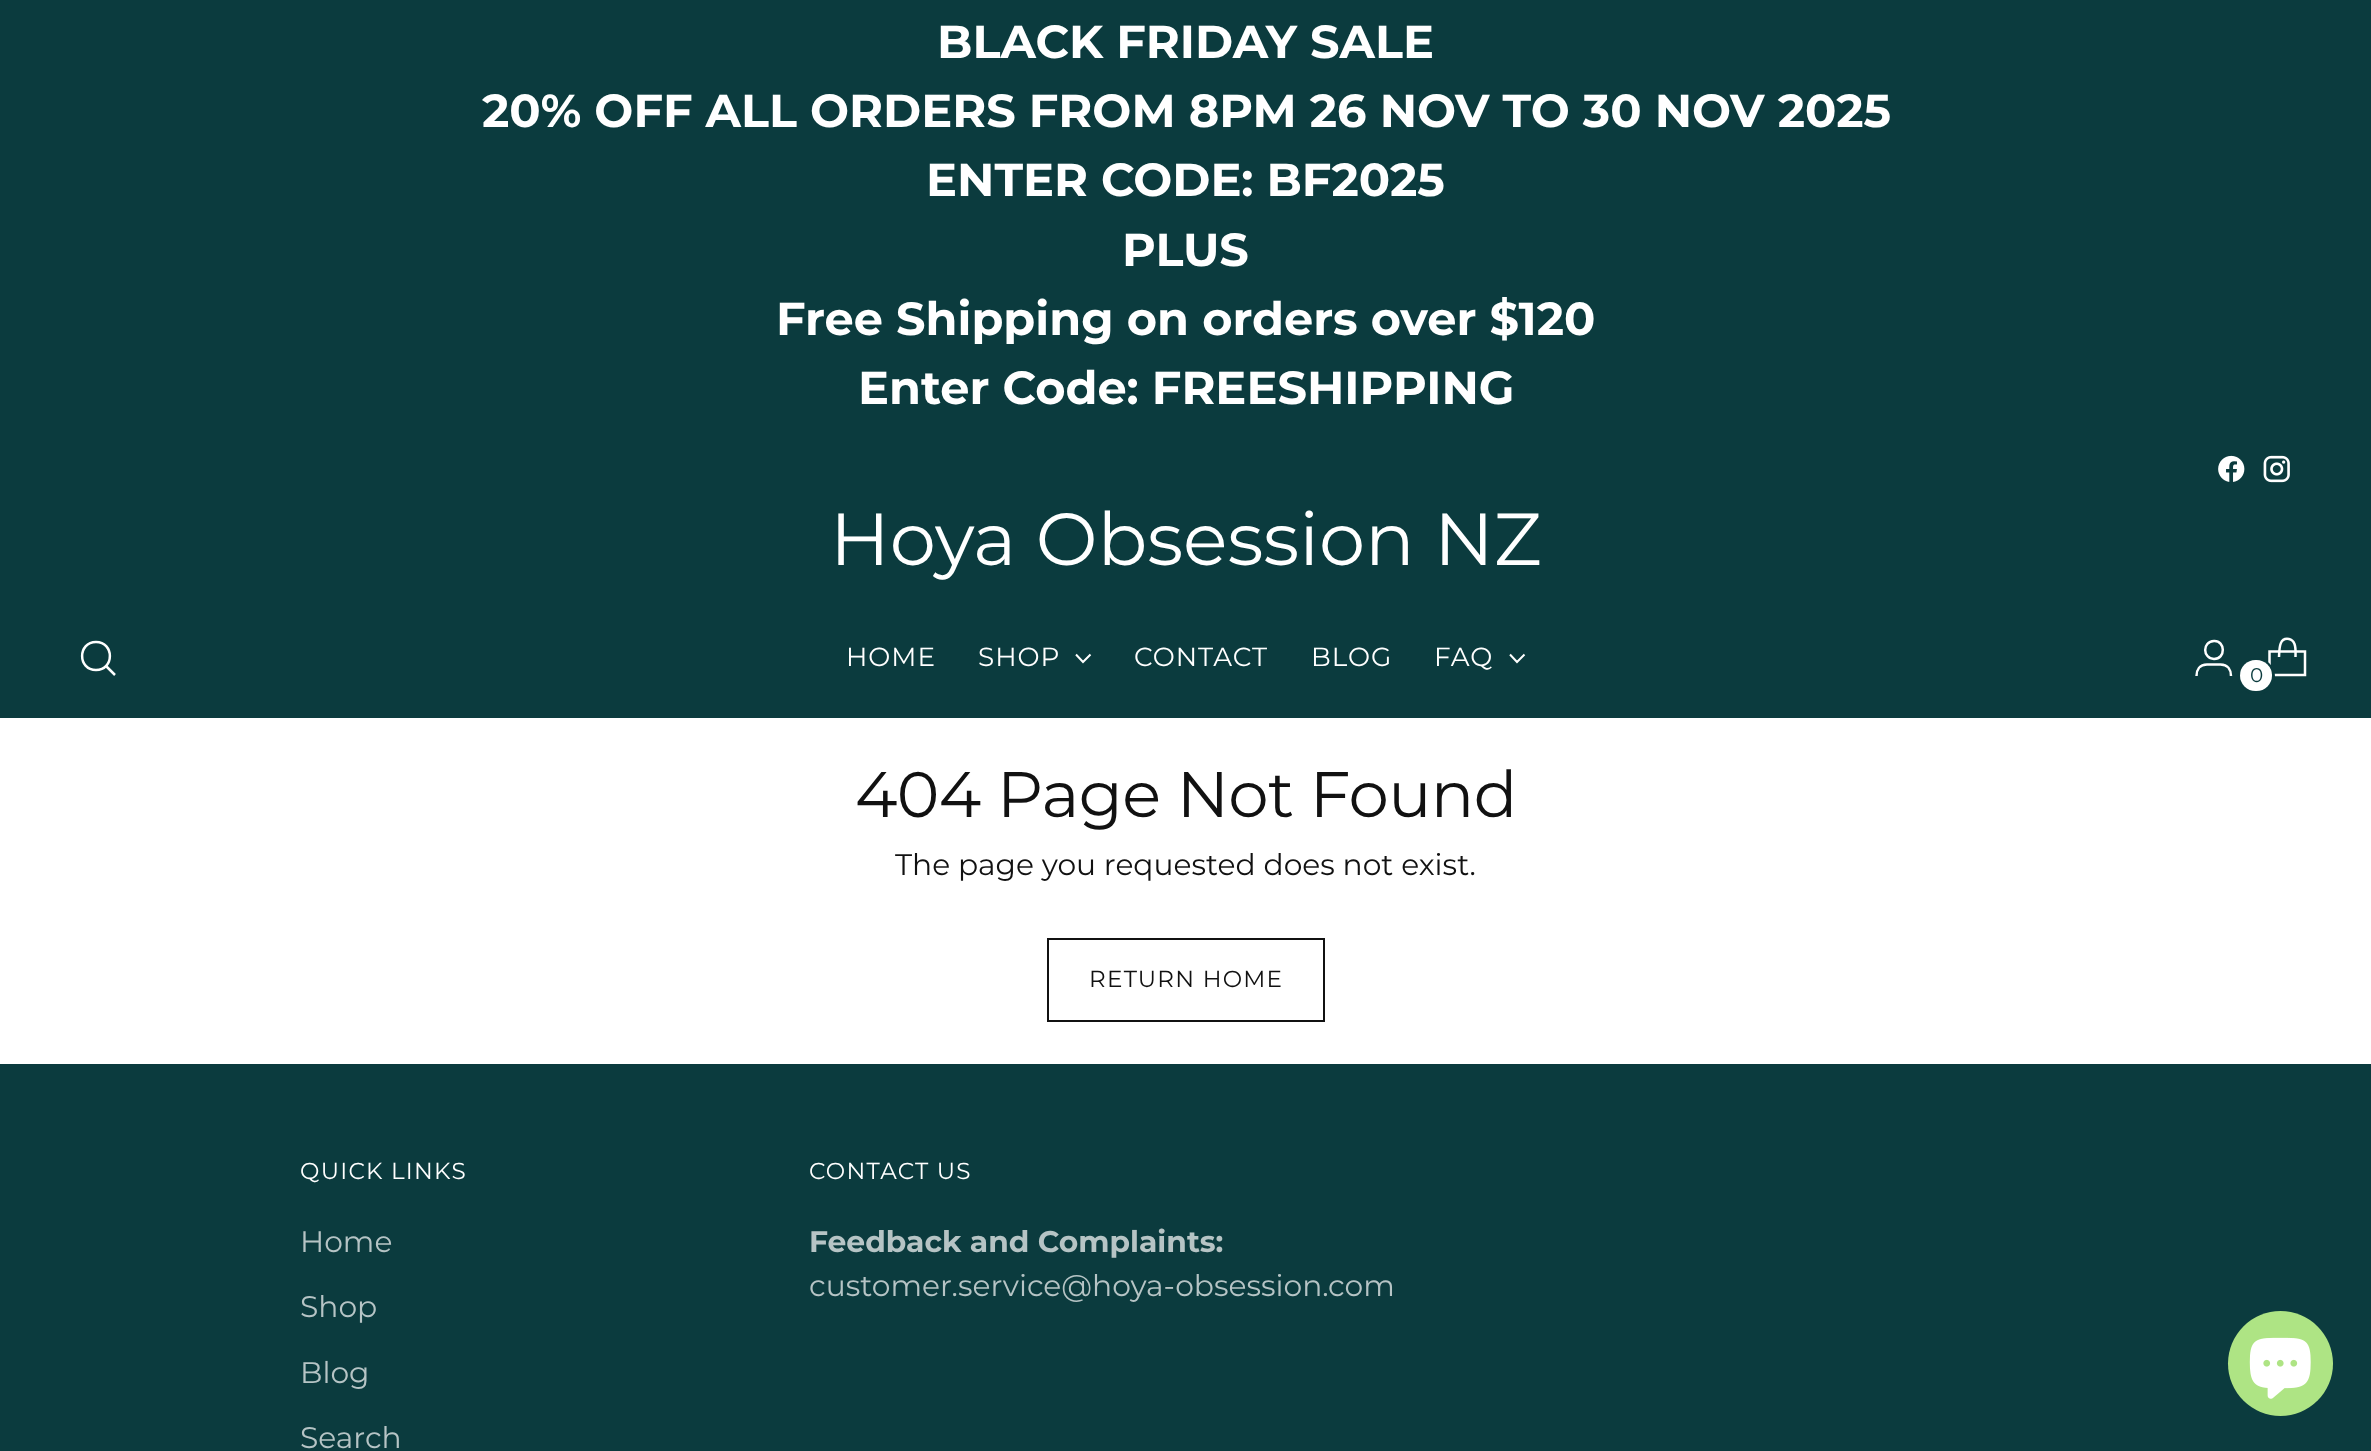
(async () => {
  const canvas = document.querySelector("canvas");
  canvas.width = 2371;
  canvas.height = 1451;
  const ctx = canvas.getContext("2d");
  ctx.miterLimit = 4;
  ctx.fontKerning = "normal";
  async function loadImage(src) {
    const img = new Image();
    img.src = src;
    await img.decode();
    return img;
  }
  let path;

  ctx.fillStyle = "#ffffff";
  ctx.fillRect(0, 0, 2371, 1451);
  ctx.fillStyle = "#0b3b3e";
  ctx.fillRect(0, 0, 2371, 718);
  ctx.drawImage(await loadImage("img/1.png"), 2218, 455, 27, 27);
  ctx.drawImage(await loadImage("img/2.png"), 2263, 455, 27, 28);
  path = new Path2D("M96 670C114.5 670 114.5 642 96 642C77.5 642 77.5 670 96 670Z");
  ctx.strokeStyle = "#ffffff";
  ctx.lineWidth = 2.5;
  ctx.lineCap = "round";
  ctx.stroke(path);
  path = new Path2D("M106 666L115 675");
  ctx.lineCap = "butt";
  ctx.stroke(path);
  path = new Path2D("M1076 654.5L1083 662L1090.5 654.5");
  ctx.lineWidth = 2;
  ctx.stroke(path);
  path = new Path2D("M1510 654.5L1517 662L1524.5 654.5");
  ctx.stroke(path);
  path = new Path2D("M2214 659C2226 659 2225.5 640.5 2214 641C2202 641.5 2202.5 658.5 2214 659ZM2196.5 676C2196.5 670 2199.5 664.5 2207 664.5H2220.5C2228 664.5 2231 670 2231 676");
  ctx.lineWidth = 2.5;
  ctx.stroke(path);
  path = new Path2D("M2295.5 657C2295.5 652.5 2296 648 2294.5 644C2293.5 641.5 2291.5 639.5 2289 639C2278.5 637 2279.5 650.5 2279 657");
  ctx.lineJoin = "bevel";
  ctx.stroke(path);
  path = new Path2D("M2305 675V651.5H2269.5V675Z");
  ctx.lineJoin = "miter";
  ctx.stroke(path);
  ctx.beginPath();
  ctx.arc(2256.5, 676.5, 17, 0, Math.PI * 2);
  ctx.strokeStyle = "#0b3b3e";
  ctx.lineWidth = 3;
  ctx.stroke();
  ctx.fillStyle = "#ffffff";
  ctx.beginPath();
  ctx.roundRect(2240, 660, 32, 31, 15.5);
  ctx.fill();
  ctx.strokeStyle = "#111111";
  ctx.lineWidth = 2;
  ctx.strokeRect(1048, 939, 276, 82);
  ctx.fillStyle = "#0b3b3e";
  ctx.fillRect(0, 1064, 2371, 387);
  ctx.fillStyle = "#aee484";
  ctx.beginPath();
  ctx.arc(2280.5, 1363.5, 52.5, 0, Math.PI * 2);
  ctx.fill();
  ctx.drawImage(await loadImage("img/3.png"), 2249, 1337, 62, 62);
  ctx.font = "bold 46.25px Montserrat";
  ctx.fillStyle = "#ffffff";
  for (const [text, x, y] of [
    ["BLACK FRIDAY SALE", 937, 58],
    ["20% OFF ALL ORDERS FROM 8PM 26 NOV TO 30 NOV 2025", 482, 127],
    ["ENTER CODE: BF2025", 926, 196],
    ["PLUS", 1122, 266],
    ["Free Shipping on orders over $120", 776, 335],
    ["Enter Code: FREESHIPPING", 858, 404],
  ]) {
    ctx.fillText(text, x, y);
  }
  ctx.font = "73.5px Montserrat";
  ctx.fillText("Hoya Obsession NZ", 830, 565);
  ctx.letterSpacing = "1px";
  ctx.font = "26.25px Montserrat";
  for (const [text, x, y] of [
    ["HOME", 846, 666],
    ["SHOP", 978, 666],
    ["CONTACT", 1134, 666],
    ["BLOG", 1311, 666],
    ["FAQ", 1434, 666],
  ]) {
    ctx.fillText(text, x, y);
  }
  ctx.letterSpacing = "0px";
  ctx.font = "20px Montserrat";
  ctx.fillStyle = "#0b3b3e";
  ctx.fillText("0", 2250, 682);
  ctx.letterSpacing = "-0.6px";
  ctx.font = "64.25px Montserrat";
  ctx.fillStyle = "#111111";
  ctx.fillText("404 Page Not Found", 855, 817);
  ctx.letterSpacing = "0px";
  ctx.font = "29.75px Montserrat";
  ctx.fillText("The page you requested does not exist.", 895, 875);
  ctx.letterSpacing = "1.25px";
  ctx.font = "23.1px Montserrat";
  ctx.fillText("RETURN HOME", 1089, 987);
  ctx.fillStyle = "#ffffff";
  ctx.fillText("QUICK LINKS", 300, 1179);
  ctx.letterSpacing = "0px";
  ctx.font = "29.75px Montserrat";
  ctx.fillStyle = "#b6c4c5";
  for (const [text, x, y] of [
    ["Home", 300, 1252],
    ["Shop", 300, 1317],
    ["Blog", 300, 1383],
    ["Search", 300, 1448],
  ]) {
    ctx.fillText(text, x, y);
  }
  ctx.letterSpacing = "1.25px";
  ctx.font = "23.1px Montserrat";
  ctx.fillStyle = "#ffffff";
  ctx.fillText("CONTACT US", 809, 1179);
  ctx.letterSpacing = "0px";
  ctx.font = "bold 29.75px Montserrat";
  ctx.fillStyle = "#b6c4c5";
  ctx.fillText("Feedback and Complaints:", 809, 1252);
  ctx.font = "29.75px Montserrat";
  ctx.fillText("customer.service@hoya-obsession.com", 809, 1296);
})();
